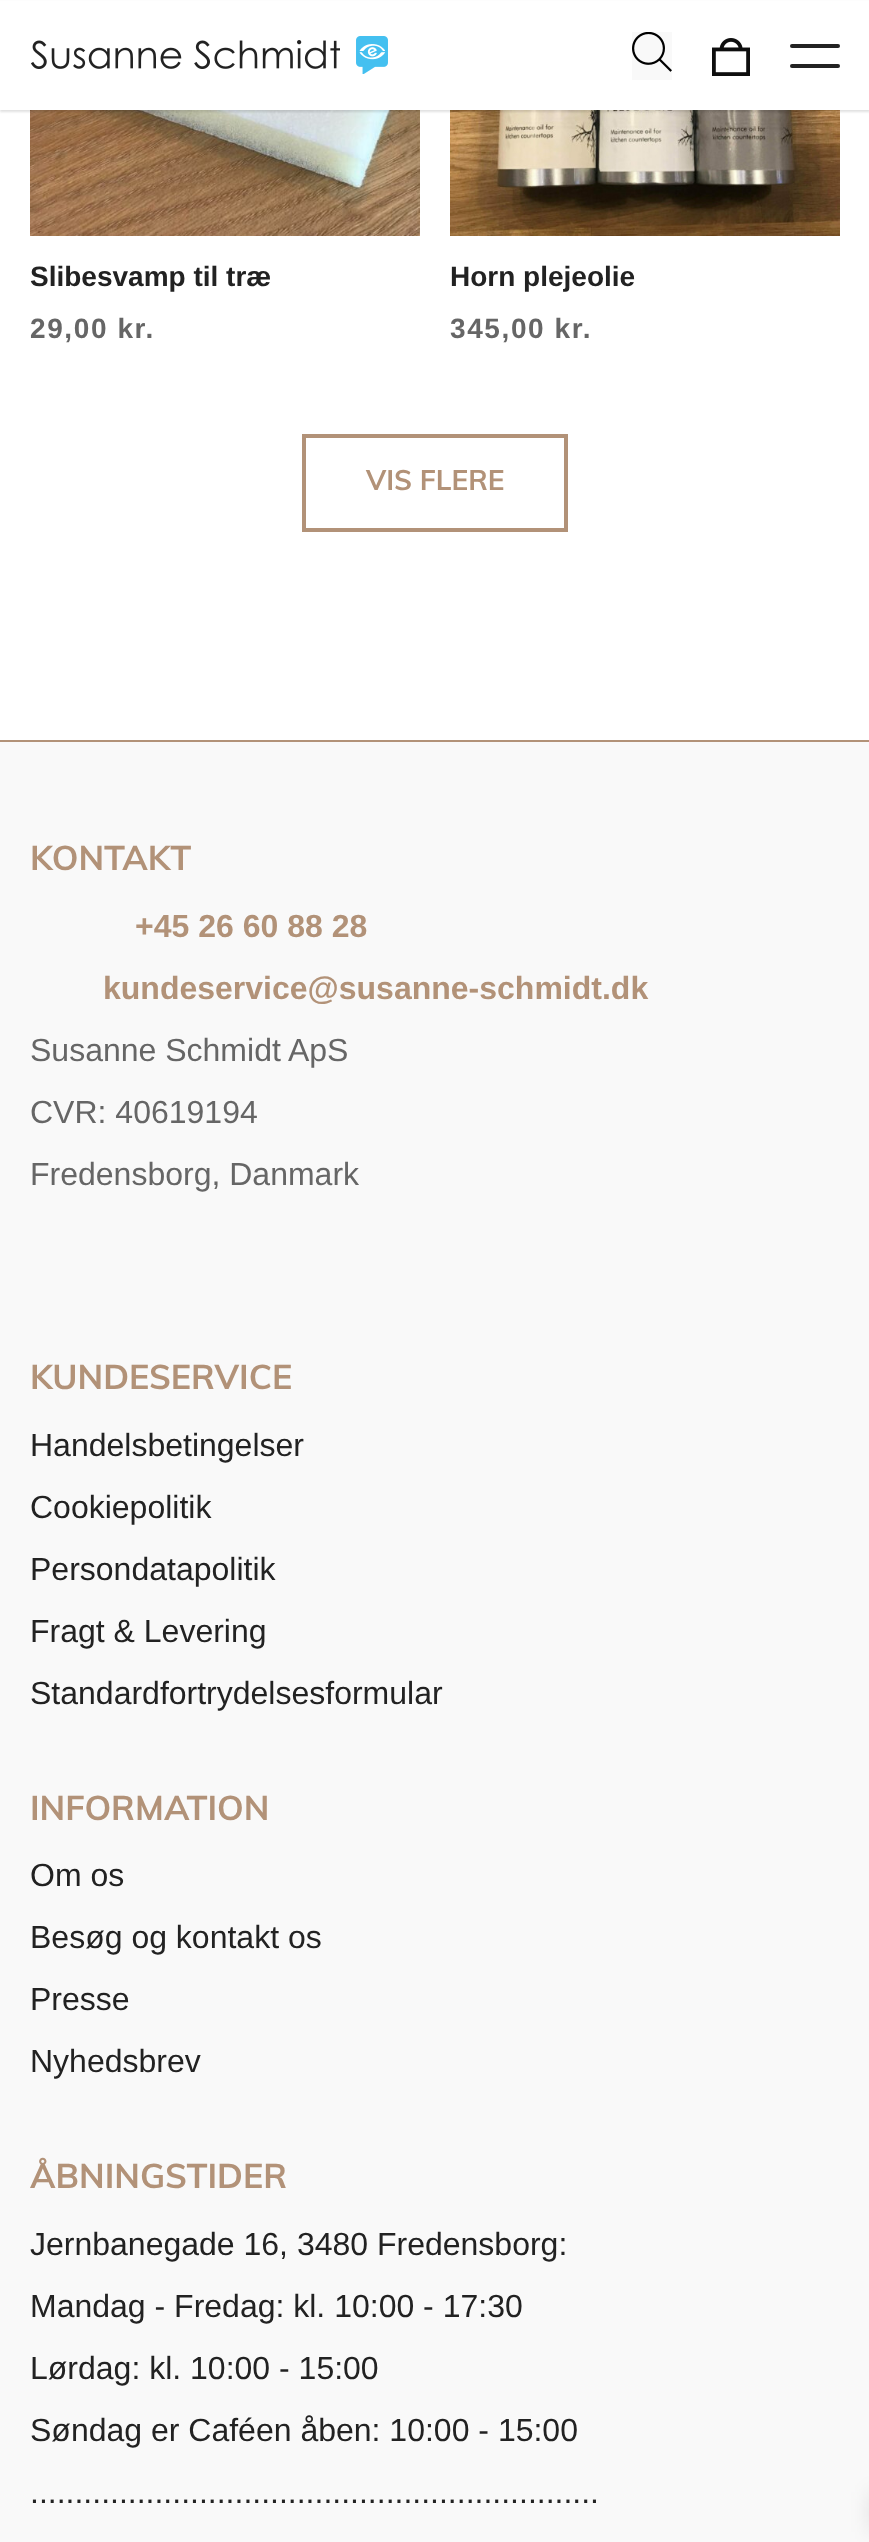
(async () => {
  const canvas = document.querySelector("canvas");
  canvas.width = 869;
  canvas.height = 2542;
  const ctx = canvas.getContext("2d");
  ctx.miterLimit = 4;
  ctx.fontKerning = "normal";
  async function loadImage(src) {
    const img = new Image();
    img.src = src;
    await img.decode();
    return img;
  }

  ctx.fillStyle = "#ffffff";
  ctx.fillRect(0, 0, 869, 2542);
  ctx.drawImage(await loadImage("img/5.png"), 30, 110, 390, 126);
  ctx.drawImage(await loadImage("img/6.png"), 450, 110, 390, 126);
  ctx.fillStyle = "rgba(0, 0, 0, 0.06)";
  ctx.filter = "blur(1px)";
  ctx.beginPath();
  ctx.rect(0, 2, 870, 110);
  ctx.fill();
  ctx.filter = "none";
  ctx.filter = "blur(1px)";
  ctx.beginPath();
  ctx.rect(0, 2, 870, 110);
  ctx.fill();
  ctx.filter = "none";
  ctx.fillStyle = "#ffffff";
  ctx.fillRect(0, 1, 869, 109);
  ctx.drawImage(await loadImage("img/1.png"), 31, 40, 309, 29);
  ctx.drawImage(await loadImage("img/2.png"), 356, 36, 32, 38);
  ctx.fillStyle = "#f9f9f9";
  ctx.fillRect(632, 32, 40, 48);
  ctx.drawImage(await loadImage("img/3.png"), 632, 32, 40, 40);
  ctx.drawImage(await loadImage("img/4.png"), 712, 38, 38, 38);
  ctx.fillStyle = "#222222";
  ctx.beginPath();
  ctx.roundRect(790, 44, 50, 4, 2);
  ctx.fill();
  ctx.beginPath();
  ctx.roundRect(790, 64, 50, 4, 2);
  ctx.fill();
  ctx.strokeStyle = "#b29278";
  ctx.lineWidth = 4;
  ctx.strokeRect(304, 436, 262, 94);
  ctx.fillStyle = "#f9f9f9";
  ctx.fillRect(0, 742, 869, 1800);
  ctx.fillStyle = "#b29278";
  ctx.fillRect(0, 740, 869, 2);
  ctx.fillStyle = "rgba(0, 0, 0, 0.1)";
  ctx.filter = "blur(10px)";
  ctx.beginPath();
  ctx.rect(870, 2492, 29, 40);
  ctx.fill();
  ctx.filter = "none";
  ctx.font = "bold 28px Liberation Sans";
  ctx.fillStyle = "#222222";
  ctx.fillText("Slibesvamp til træ", 30, 286);
  ctx.letterSpacing = "1.6px";
  ctx.fillStyle = "#666666";
  ctx.fillText("29,00 kr.", 30, 338);
  ctx.letterSpacing = "0px";
  ctx.fillStyle = "#222222";
  ctx.fillText("Horn plejeolie", 450, 286);
  ctx.letterSpacing = "1.6px";
  ctx.fillStyle = "#666666";
  ctx.fillText("345,00 kr.", 450, 338);
  ctx.letterSpacing = "0px";
  ctx.font = "bold 28px Muli";
  ctx.fillStyle = "#b29278";
  ctx.fillText("VIS FLERE", 366, 490);
  ctx.font = "bold 34px Muli";
  ctx.fillText("KONTAKT", 30, 870);
  ctx.font = "bold 32px Liberation Sans";
  ctx.fillText("+45 26 60 88 28", 135, 937);
  ctx.fillText("kundeservice@susanne-schmidt.dk", 103, 999);
  ctx.font = "32px Liberation Sans";
  ctx.fillStyle = "#666666";
  for (const [text, x, y] of [
    ["Susanne Schmidt ApS", 30, 1061],
    ["CVR: 40619194", 30, 1123],
    ["Fredensborg, Danmark", 30, 1185],
  ]) {
    ctx.fillText(text, x, y);
  }
  ctx.font = "bold 34px Muli";
  ctx.fillStyle = "#b29278";
  ctx.fillText("KUNDESERVICE", 30, 1389);
  ctx.font = "32px Liberation Sans";
  ctx.fillStyle = "#222222";
  for (const [text, x, y] of [
    ["Handelsbetingelser", 30, 1456],
    ["Cookiepolitik", 30, 1518],
    ["Persondatapolitik", 30, 1580],
    ["Fragt & Levering", 30, 1642],
    ["Standardfortrydelsesformular", 30, 1704],
  ]) {
    ctx.fillText(text, x, y);
  }
  ctx.font = "bold 34px Muli";
  ctx.fillStyle = "#b29278";
  ctx.fillText("INFORMATION", 30, 1820);
  ctx.font = "32px Liberation Sans";
  ctx.fillStyle = "#222222";
  for (const [text, x, y] of [
    ["Om os", 30, 1886],
    ["Besøg og kontakt os", 30, 1948],
    ["Presse", 30, 2010],
    ["Nyhedsbrev", 30, 2072],
  ]) {
    ctx.fillText(text, x, y);
  }
  ctx.font = "bold 34px Muli";
  ctx.fillStyle = "#b29278";
  ctx.fillText("ÅBNINGSTIDER", 30, 2188);
  ctx.font = "32px Liberation Sans";
  ctx.fillStyle = "#222222";
  for (const [text, x, y] of [
    ["Jernbanegade 16, 3480 Fredensborg:", 30, 2255],
    ["Mandag - Fredag: kl. 10:00 - 17:30", 30, 2317],
    ["Lørdag: kl. 10:00 - 15:00", 30, 2379],
    ["Søndag er Caféen åben: 10:00 - 15:00", 30, 2441],
    ["................................................................", 30, 2503],
  ]) {
    ctx.fillText(text, x, y);
  }
})();
